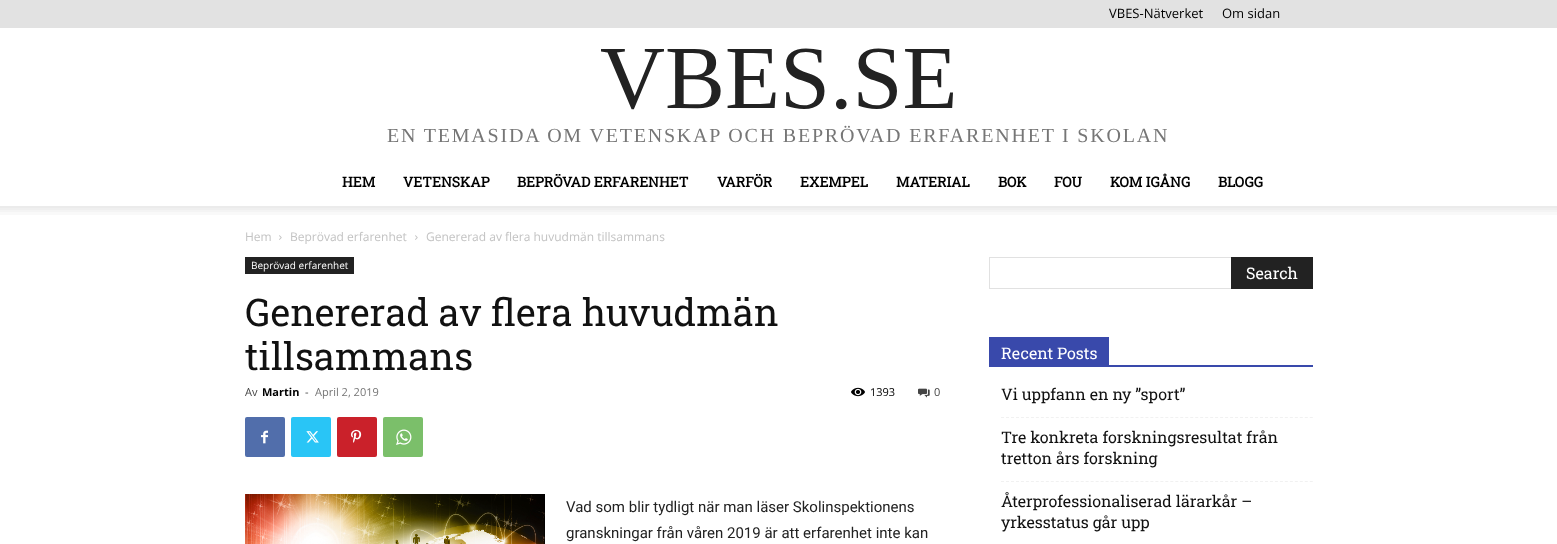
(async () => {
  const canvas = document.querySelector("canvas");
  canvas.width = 1557;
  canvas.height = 544;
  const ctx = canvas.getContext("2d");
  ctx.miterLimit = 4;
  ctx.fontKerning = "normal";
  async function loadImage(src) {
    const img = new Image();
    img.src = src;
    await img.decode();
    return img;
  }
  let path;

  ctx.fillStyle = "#ffffff";
  ctx.fillRect(0, 0, 1557, 544);
  ctx.fillStyle = "#e2e2e2";
  ctx.fillRect(0, 0, 1557, 28);
  ctx.drawImage(await loadImage("img/1.png"), 0, 206, 1557, 9);
  ctx.drawImage(await loadImage("img/2.png"), 279, 235, 3, 5);
  ctx.drawImage(await loadImage("img/2.png"), 415, 235, 3, 5);
  ctx.fillStyle = "#222222";
  ctx.fillRect(245, 257, 109, 17);
  ctx.drawImage(await loadImage("img/3.png"), 851, 387, 14, 10);
  ctx.drawImage(await loadImage("img/4.png"), 918, 388, 12, 10);
  ctx.fillStyle = "#516eab";
  ctx.beginPath();
  ctx.roundRect(245, 417, 40, 40, 2);
  ctx.fill();
  ctx.drawImage(await loadImage("img/5.png"), 261, 430, 7, 14);
  ctx.fillStyle = "#29c5f6";
  ctx.beginPath();
  ctx.roundRect(291, 417, 40, 40, 2);
  ctx.fill();
  ctx.drawImage(await loadImage("img/6.png"), 306, 431, 13, 12);
  ctx.fillStyle = "#ca212a";
  ctx.beginPath();
  ctx.roundRect(337, 417, 40, 40, 2);
  ctx.fill();
  ctx.drawImage(await loadImage("img/7.png"), 351, 429, 11, 14);
  ctx.fillStyle = "#7bbf6a";
  ctx.beginPath();
  ctx.roundRect(383, 417, 40, 40, 2);
  ctx.fill();
  ctx.drawImage(await loadImage("img/8.png"), 396, 429, 16, 16);
  ctx.drawImage(await loadImage("img/9.png"), 245, 494, 300, 50);
  for (const [x, y, w, h, color] of [
    [989, 257, 242, 1, "#e1e1e1"],
    [989, 288, 242, 1, "#e1e1e1"],
    [989, 257, 1, 32, "#e1e1e1"],
    [1231, 257, 82, 32, "#222222"],
    [989, 365, 324, 2, "#3949ab"],
    [989, 337, 120, 28, "#3949ab"],
  ]) {
    ctx.fillStyle = color;
    ctx.fillRect(x, y, w, h);
  }
  path = new Path2D("M1001 417.5H1313");
  ctx.strokeStyle = "#f1f1f1";
  ctx.setLineDash([3, 1.98]);
  ctx.stroke(path);
  path = new Path2D("M1001 481.5H1313");
  ctx.stroke(path);
  ctx.font = "13px Open Sans";
  ctx.fillStyle = "#000000";
  ctx.fillText("VBES-Nätverket", 1109, 18);
  ctx.fillText("Om sidan", 1222, 18);
  ctx.font = "90px Liberation Serif";
  ctx.fillStyle = "#222222";
  ctx.fillText("VBES.SE", 600, 108);
  ctx.letterSpacing = "1.8px";
  ctx.font = "20px Liberation Serif";
  ctx.fillStyle = "#767676";
  ctx.fillText("EN TEMASIDA OM VETENSKAP OCH BEPRÖVAD ERFARENHET I SKOLAN", 387, 142);
  ctx.letterSpacing = "0px";
  ctx.font = "bold 14px Roboto Slab";
  ctx.fillStyle = "#000000";
  for (const [text, x, y] of [
    ["HEM", 342, 187],
    ["VETENSKAP", 403, 187],
    ["BEPRÖVAD ERFARENHET", 517, 187],
    ["VARFÖR", 717, 187],
    ["EXEMPEL", 800, 187],
    ["MATERIAL", 896, 187],
    ["BOK", 998, 187],
    ["FOU", 1054, 187],
    ["KOM IGÅNG", 1110, 187],
    ["BLOGG", 1218, 187],
  ]) {
    ctx.fillText(text, x, y);
  }
  ctx.font = "12px Open Sans";
  ctx.fillStyle = "#c3c3c3";
  for (const [text, x, y] of [
    ["Hem", 245, 241],
    ["Beprövad erfarenhet", 290, 241],
    ["Genererad av flera huvudmän tillsammans", 426, 241],
  ]) {
    ctx.fillText(text, x, y);
  }
  ctx.font = "10px Open Sans";
  ctx.fillStyle = "#ffffff";
  ctx.fillText("Beprövad erfarenhet", 251, 269);
  ctx.font = "38px Roboto Slab";
  ctx.fillStyle = "#111111";
  ctx.fillText("Genererad av flera huvudmän", 245, 326);
  ctx.fillText("tillsammans", 245, 370);
  ctx.font = "11px Open Sans";
  ctx.fillStyle = "#444444";
  ctx.fillText("Av", 245, 396);
  ctx.font = "bold 11px Open Sans";
  ctx.fillStyle = "#000000";
  ctx.fillText("Martin", 262, 396);
  ctx.font = "11px Open Sans";
  ctx.fillStyle = "#444444";
  ctx.fillText("-", 305, 396);
  ctx.fillStyle = "#767676";
  ctx.fillText("April 2, 2019", 315, 396);
  ctx.fillStyle = "#000000";
  ctx.fillText("1393", 870, 396);
  ctx.fillStyle = "#444444";
  ctx.fillText("0", 934, 396);
  ctx.font = "15px Roboto";
  ctx.fillStyle = "#222222";
  ctx.fillText("Vad som blir tydligt när man läser Skolinspektionens", 566, 512);
  ctx.fillText("granskningar från våren 2019 är att erfarenhet inte kan", 566, 538);
  ctx.font = "16px Roboto Slab";
  ctx.fillStyle = "#ffffff";
  ctx.fillText("Search", 1246, 279);
  ctx.fillText("Recent Posts", 1001, 359);
  ctx.fillStyle = "#111111";
  for (const [text, x, y] of [
    ["Vi uppfann en ny ”sport”", 1001, 400],
    ["Tre konkreta forskningsresultat från", 1001, 443],
    ["tretton års forskning", 1001, 464],
    ["Återprofessionaliserad lärarkår –", 1001, 507],
    ["yrkesstatus går upp", 1001, 528],
  ]) {
    ctx.fillText(text, x, y);
  }
})();
